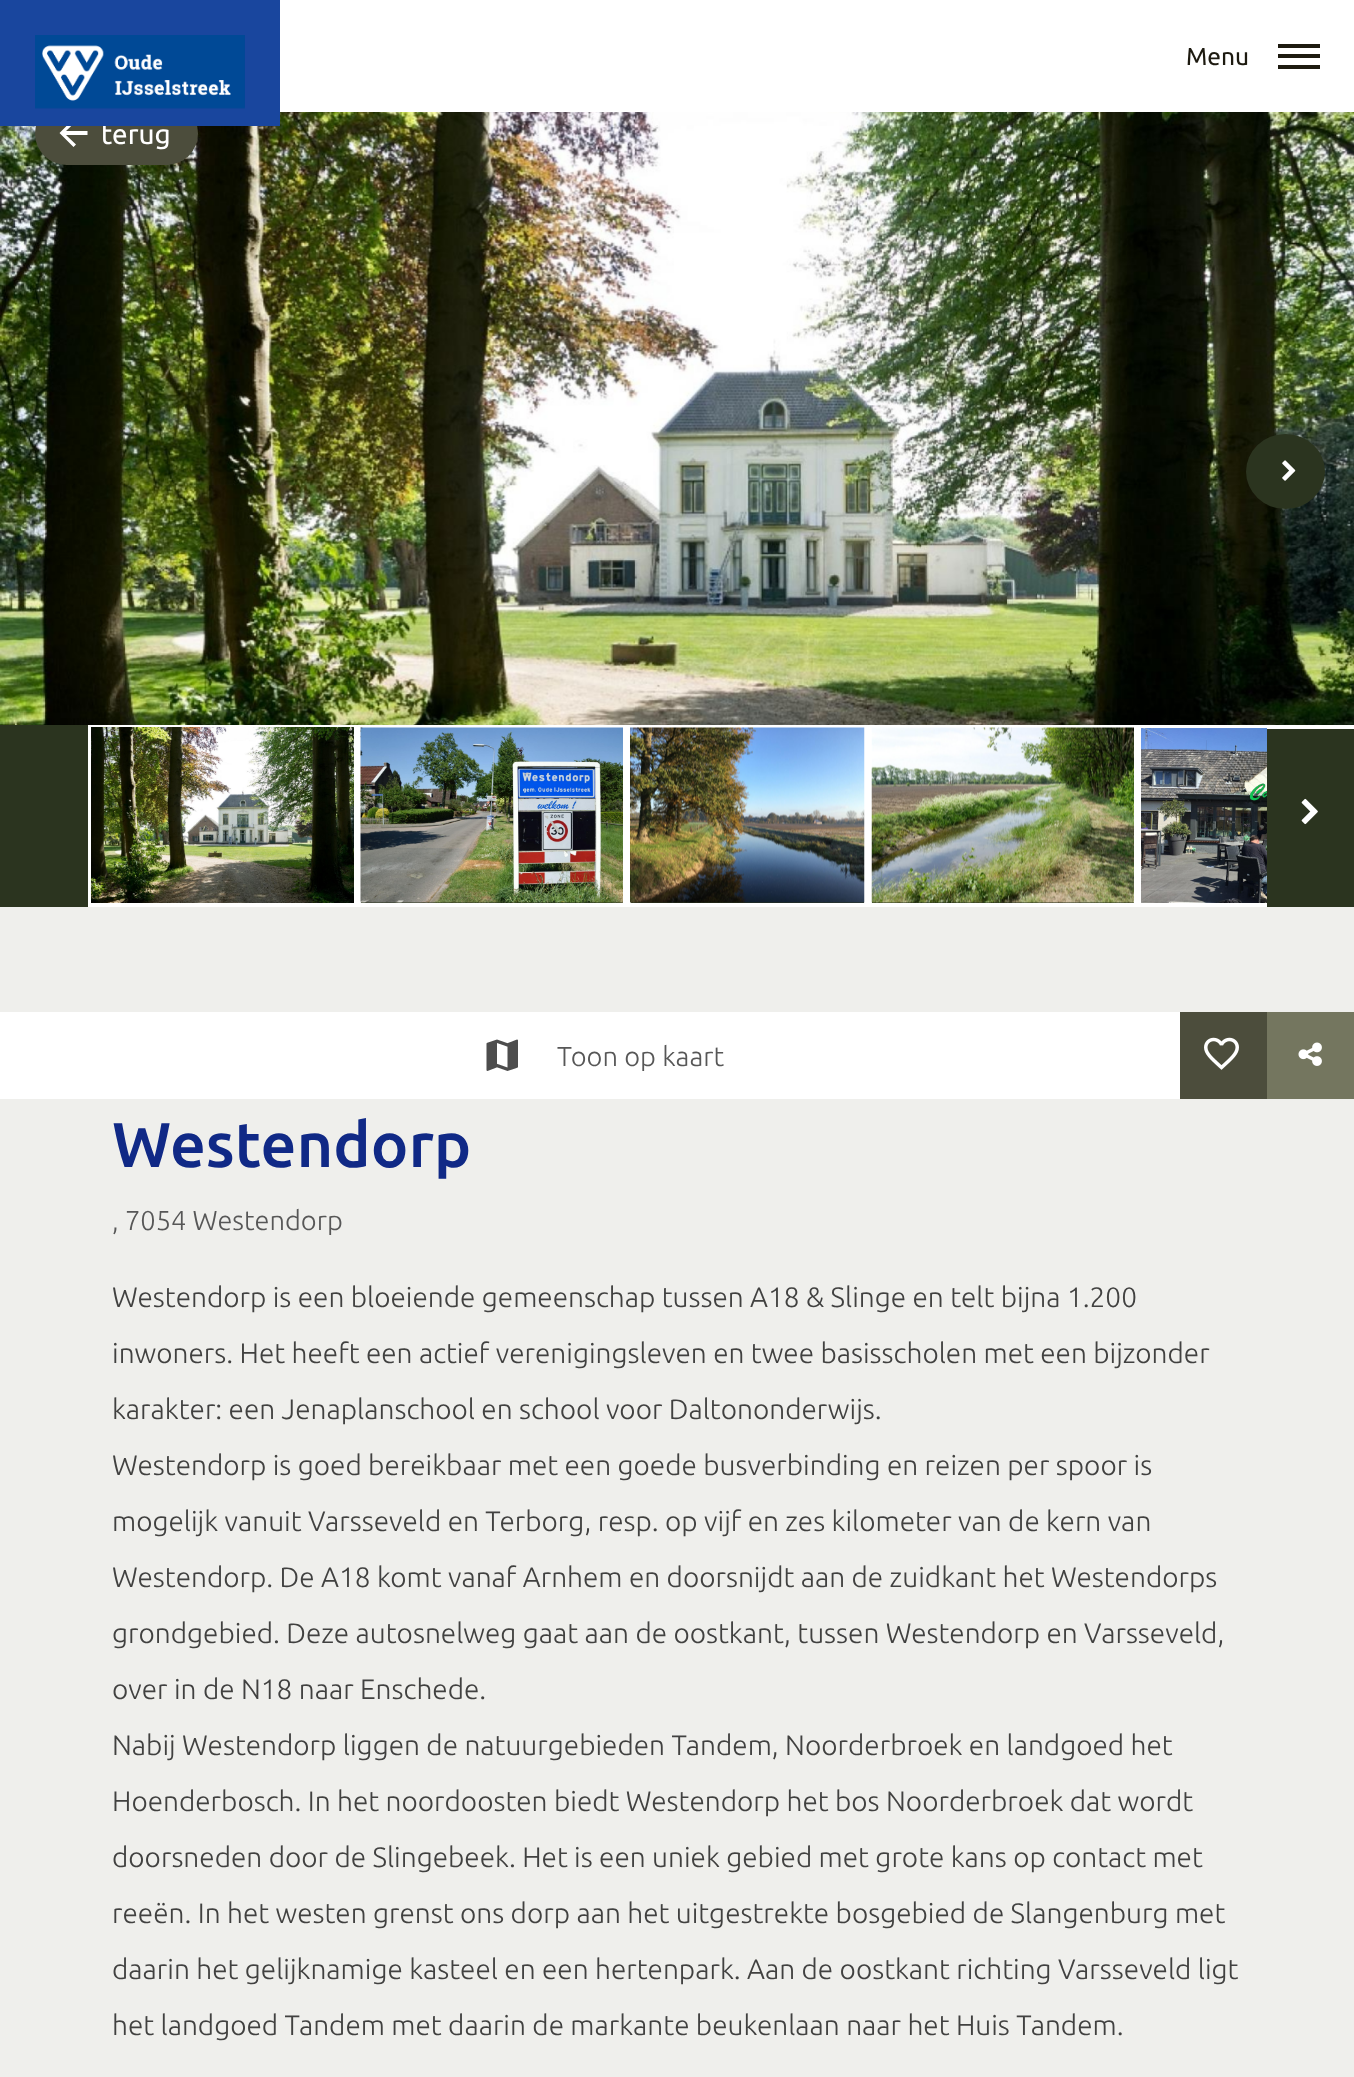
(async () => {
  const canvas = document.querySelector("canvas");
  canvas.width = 1354;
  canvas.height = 2077;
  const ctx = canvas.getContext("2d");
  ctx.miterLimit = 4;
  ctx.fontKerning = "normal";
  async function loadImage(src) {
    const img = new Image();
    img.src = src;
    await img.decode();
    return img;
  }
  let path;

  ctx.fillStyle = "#efefec";
  ctx.fillRect(0, 0, 1354, 2077);
  for (const [x, y, w, h, color] of [
    [280, 0, 1074, 112, "#ffffff"],
    [1278, 54, 42, 4, "#1d1a10"],
    [1278, 44, 42, 4, "#1d1a10"],
    [1278, 65, 42, 4, "#1d1a10"],
  ]) {
    ctx.fillStyle = color;
    ctx.fillRect(x, y, w, h);
  }
  ctx.drawImage(await loadImage("img/2.png"), 0, 112, 1354, 613);
  ctx.fillStyle = "#2b341f";
  ctx.beginPath();
  ctx.ellipse(1285.5, 471.5, 39.5, 37.5, 0, 0, Math.PI * 2);
  ctx.fill();
  ctx.drawImage(await loadImage("img/3.png"), 1282, 460, 14, 21);
  ctx.fillRect(0, 725, 1134, 182);
  ctx.strokeStyle = "#ffffff";
  ctx.lineWidth = 4;
  ctx.strokeRect(90, 727, 265, 178);
  ctx.drawImage(await loadImage("img/4.png"), 91, 727, 263, 176);
  ctx.strokeRect(359, 727, 266, 178);
  ctx.drawImage(await loadImage("img/5.png"), 360, 727, 263, 176);
  ctx.strokeRect(629, 727, 237, 178);
  ctx.drawImage(await loadImage("img/6.png"), 630, 727, 235, 176);
  ctx.strokeRect(870, 727, 266, 178);
  ctx.drawImage(await loadImage("img/7.png"), 871, 727, 263, 176);
  ctx.strokeRect(1140, 727, 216, 178);
  ctx.drawImage(await loadImage("img/8.png"), 1141, 728, 126, 175);
  ctx.fillStyle = "#4c4d3c";
  ctx.beginPath();
  ctx.roundRect(35, 102, 163, 63, 31.5);
  ctx.fill();
  ctx.fillStyle = "#ffffff";
  path = new Path2D("M87.5 131H66L76 121.5L73.5 119L59.5 133L73.5 147L76 144.5L66 135H87.5Z");
  ctx.fill(path);
  ctx.fillStyle = "#2b341f";
  ctx.fillRect(1267, 729, 87, 178);
  ctx.drawImage(await loadImage("img/9.png"), 1301, 798, 17, 27);
  ctx.fillStyle = "#ffffff";
  ctx.fillRect(0, 1012, 1180, 87);
  ctx.drawImage(await loadImage("img/10.png"), 486, 1039, 32, 32);
  ctx.fillStyle = "#4c4d3c";
  ctx.fillRect(1180, 1012, 87, 87);
  ctx.drawImage(await loadImage("img/11.png"), 1204, 1037, 35, 33);
  ctx.fillStyle = "#74765f";
  ctx.fillRect(1267, 1012, 87, 87);
  ctx.drawImage(await loadImage("img/12.png"), 1298, 1042, 24, 24);
  ctx.font = "24.5px Ubuntu";
  ctx.fillStyle = "#1d1a10";
  ctx.fillText("Menu", 1186, 65);
  ctx.font = "28px Ubuntu";
  ctx.fillStyle = "#ffffff";
  ctx.fillText("terug", 101, 144);
  ctx.fillStyle = "#19469e";
  ctx.fillRect(0, 0, 280, 126);
  ctx.drawImage(await loadImage("img/1.png"), 35, 35, 210, 74);
  ctx.font = "300 27.25px Ubuntu";
  ctx.fillStyle = "#575757";
  ctx.fillText("Toon op kaart", 557, 1066);
  ctx.fillText(", 7054 Westendorp", 112, 1230);
  ctx.font = "500 63px Ubuntu";
  ctx.fillStyle = "#102986";
  ctx.fillText("Westendorp", 112, 1167);
  ctx.font = "300 28px Ubuntu";
  ctx.fillStyle = "#414140";
  for (const [text, x, y] of [
    ["Westendorp is een bloeiende gemeenschap tussen A18 & Slinge en telt bijna 1.200", 112, 1307],
    ["inwoners. Het heeft een actief verenigingsleven en twee basisscholen met een bijzonder", 112, 1363],
    ["karakter: een Jenaplanschool en school voor Daltononderwijs.", 112, 1419],
    ["Westendorp is goed bereikbaar met een goede busverbinding en reizen per spoor is", 112, 1475],
    ["mogelijk vanuit Varsseveld en Terborg, resp. op vijf en zes kilometer van de kern van", 112, 1531],
    ["Westendorp. De A18 komt vanaf Arnhem en doorsnijdt aan de zuidkant het Westendorps", 112, 1587],
    ["grondgebied. Deze autosnelweg gaat aan de oostkant, tussen Westendorp en Varsseveld,", 112, 1643],
    ["over in de N18 naar Enschede.", 112, 1699],
    ["Nabij Westendorp liggen de natuurgebieden Tandem, Noorderbroek en landgoed het", 112, 1755],
    ["Hoenderbosch. In het noordoosten biedt Westendorp het bos Noorderbroek dat wordt", 112, 1811],
    ["doorsneden door de Slingebeek. Het is een uniek gebied met grote kans op contact met", 112, 1867],
    ["reeën. In het westen grenst ons dorp aan het uitgestrekte bosgebied de Slangenburg met", 112, 1923],
    ["daarin het gelijknamige kasteel en een hertenpark. Aan de oostkant richting Varsseveld ligt", 112, 1979],
    ["het landgoed Tandem met daarin de markante beukenlaan naar het Huis Tandem.", 112, 2035],
  ]) {
    ctx.fillText(text, x, y);
  }
})();
